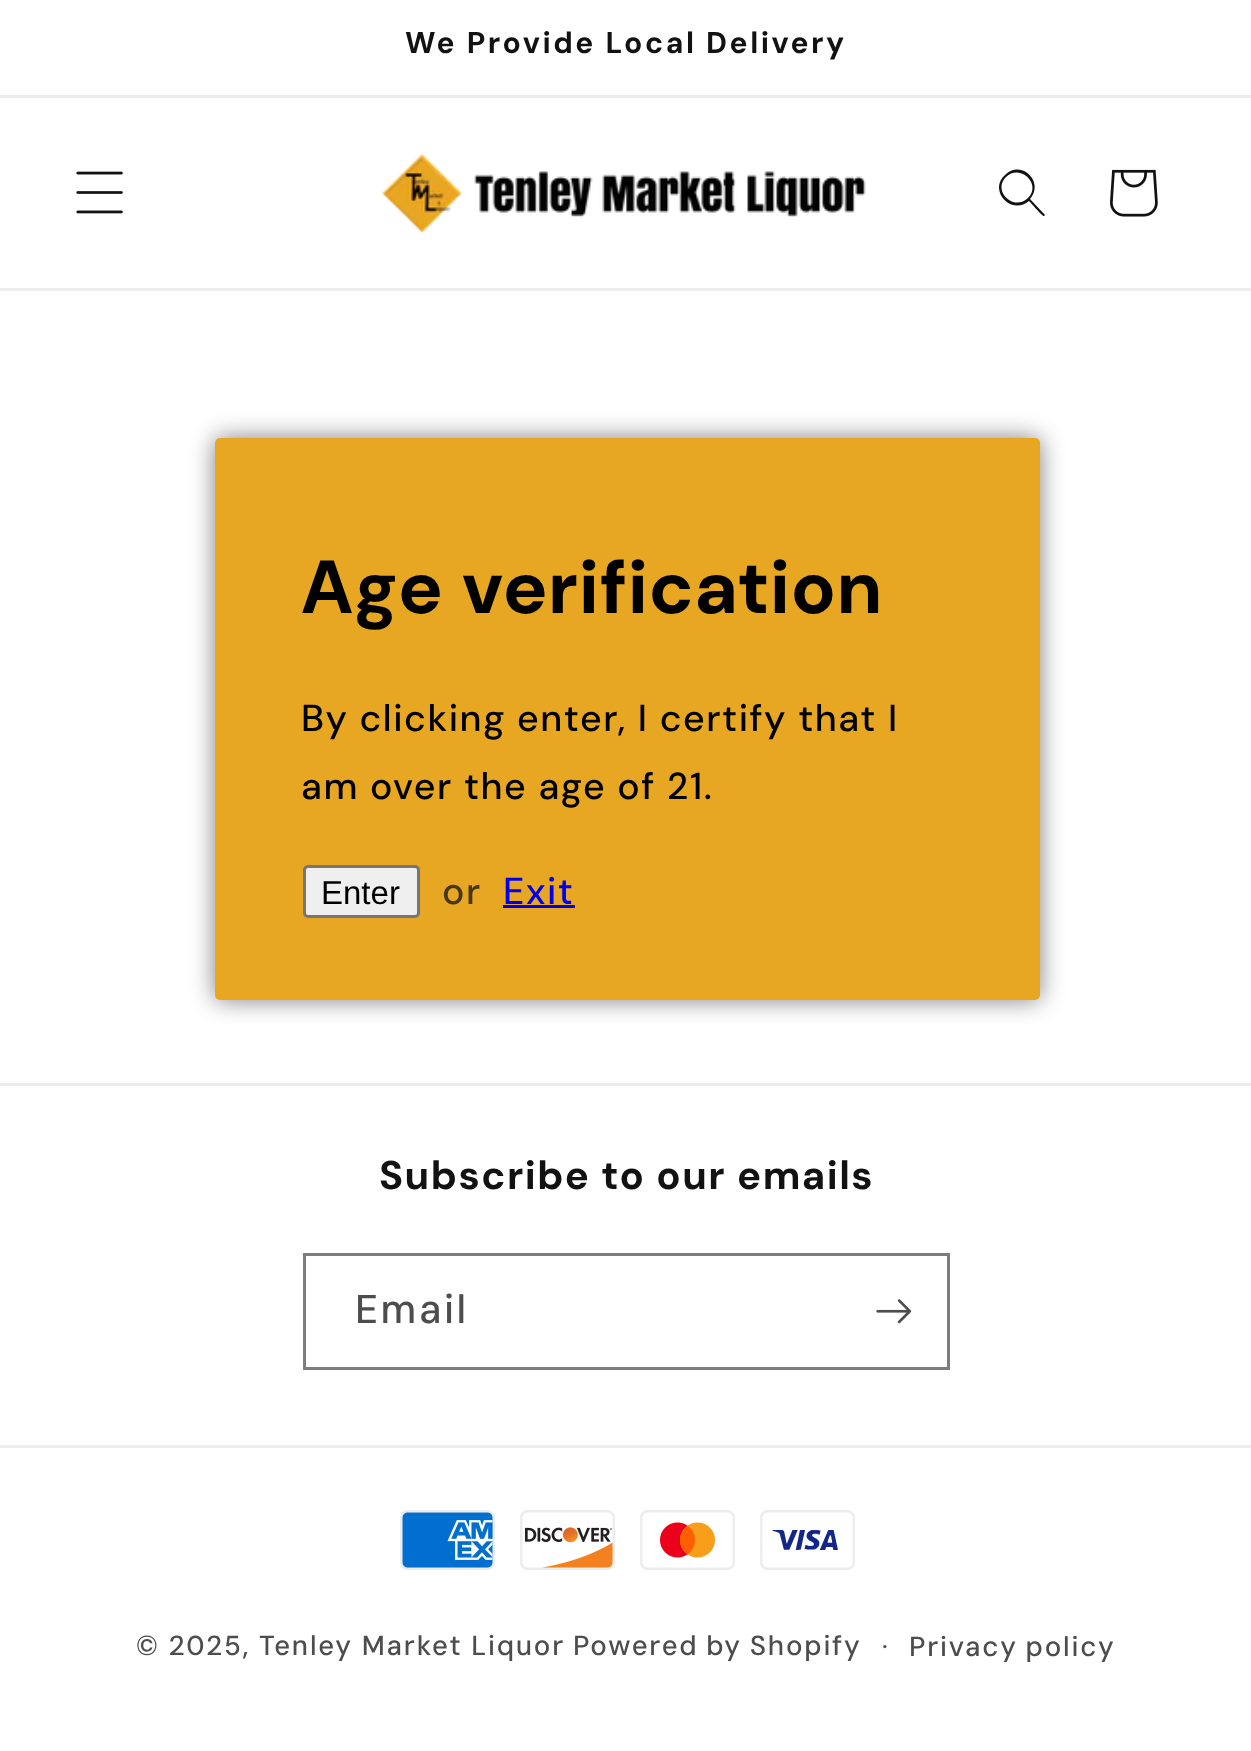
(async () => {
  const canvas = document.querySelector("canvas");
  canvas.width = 1251;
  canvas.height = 1751;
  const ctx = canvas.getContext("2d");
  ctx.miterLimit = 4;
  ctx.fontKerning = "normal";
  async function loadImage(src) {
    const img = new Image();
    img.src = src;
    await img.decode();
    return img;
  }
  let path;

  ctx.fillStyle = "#ffffff";
  ctx.fillRect(0, 0, 1251, 1751);
  ctx.fillStyle = "#ececec";
  ctx.fillRect(0, 95, 1251, 3);
  ctx.fillRect(0, 288, 1251, 3);
  ctx.drawImage(await loadImage("img/1.png"), 76, 171, 47, 43);
  ctx.drawImage(await loadImage("img/2.png"), 381, 154, 485, 80);
  ctx.fillStyle = "#121212";
  path = new Path2D("M1028 198C1014 212 992 191 1006 177C1020 163 1042 184 1028 198ZM1029 201C1011 216 988 190 1005 175C1021 159 1045 182 1030 199L1045 215L1044 216C1043 217 1031 203 1029 201Z");
  ctx.fill(path, "evenodd");
  ctx.drawImage(await loadImage("img/3.png"), 1110, 169, 48, 48);
  ctx.fillStyle = "rgba(0, 0, 0, 0.5)";
  ctx.filter = "blur(12.5px)";
  ctx.beginPath();
  ctx.roundRect(215, 438, 825, 562, 5);
  ctx.fill();
  ctx.filter = "none";
  ctx.fillStyle = "#e7a722";
  ctx.beginPath();
  ctx.roundRect(215, 438, 825, 562, 5);
  ctx.fill();
  ctx.fillStyle = "#efefef";
  ctx.beginPath();
  ctx.roundRect(304.5, 866.5, 114, 50, 3.5);
  ctx.fill();
  ctx.strokeStyle = "#767676";
  ctx.lineWidth = 3;
  ctx.stroke();
  ctx.fillStyle = "#0000ee";
  ctx.fillRect(503, 905, 72, 3);
  ctx.fillStyle = "#ececec";
  ctx.fillRect(0, 1083, 1251, 3);
  ctx.strokeStyle = "#7d7d7d";
  ctx.strokeRect(304.5, 1254.5, 644, 114);
  ctx.drawImage(await loadImage("img/4.png"), 876, 1299, 36, 25);
  ctx.fillRect(0, 1445, 1251, 3);
  ctx.drawImage(await loadImage("img/5.png"), 400, 1510, 95, 60);
  ctx.drawImage(await loadImage("img/6.png"), 520, 1510, 95, 60);
  ctx.drawImage(await loadImage("img/7.png"), 640, 1510, 95, 60);
  ctx.drawImage(await loadImage("img/8.png"), 760, 1510, 95, 60);
  ctx.letterSpacing = "2.5px";
  ctx.font = "bold 30px 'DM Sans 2'";
  ctx.fillStyle = "#121212";
  ctx.fillText("We Provide Local Delivery", 405, 53);
  ctx.letterSpacing = "1.5px";
  ctx.font = "bold 75px 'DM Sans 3'";
  ctx.fillStyle = "#000000";
  ctx.fillText("Age verification", 301, 613);
  ctx.font = "500 37.5px 'DM Sans 2'";
  ctx.fillText("By clicking enter, I certify that I", 301, 731);
  ctx.fillText("am over the age of 21.", 301, 799);
  ctx.letterSpacing = "0px";
  ctx.font = "33px Liberation Sans";
  ctx.fillText("Enter", 321, 904);
  ctx.letterSpacing = "1.5px";
  ctx.font = "500 37.5px 'DM Sans 2'";
  ctx.fillStyle = "#473716";
  ctx.fillText("or", 442, 904);
  ctx.fillStyle = "#0000ee";
  ctx.fillText("Exit", 503, 904);
  ctx.font = "bold 40px DM Sans";
  ctx.fillStyle = "#121212";
  ctx.fillText("Subscribe to our emails", 379, 1189);
  ctx.letterSpacing = "2.5px";
  ctx.font = "500 40px DM Sans";
  ctx.fillStyle = "#4d4d4d";
  ctx.fillText("Email", 355, 1323);
  ctx.letterSpacing = "1.75px";
  ctx.font = "500 27.5px DM Sans";
  ctx.fillText("© 2025, Tenley Market Liquor", 136, 1655);
  ctx.wordSpacing = "-1px";
  ctx.fillText("Powered by Shopify", 573, 1655);
  ctx.wordSpacing = "0px";
  ctx.font = "500 25px DM Sans";
  ctx.fillText("·", 882, 1655);
  ctx.wordSpacing = "-1px";
  ctx.font = "500 27.5px DM Sans";
  ctx.fillText("Privacy policy", 909, 1656);
})();
